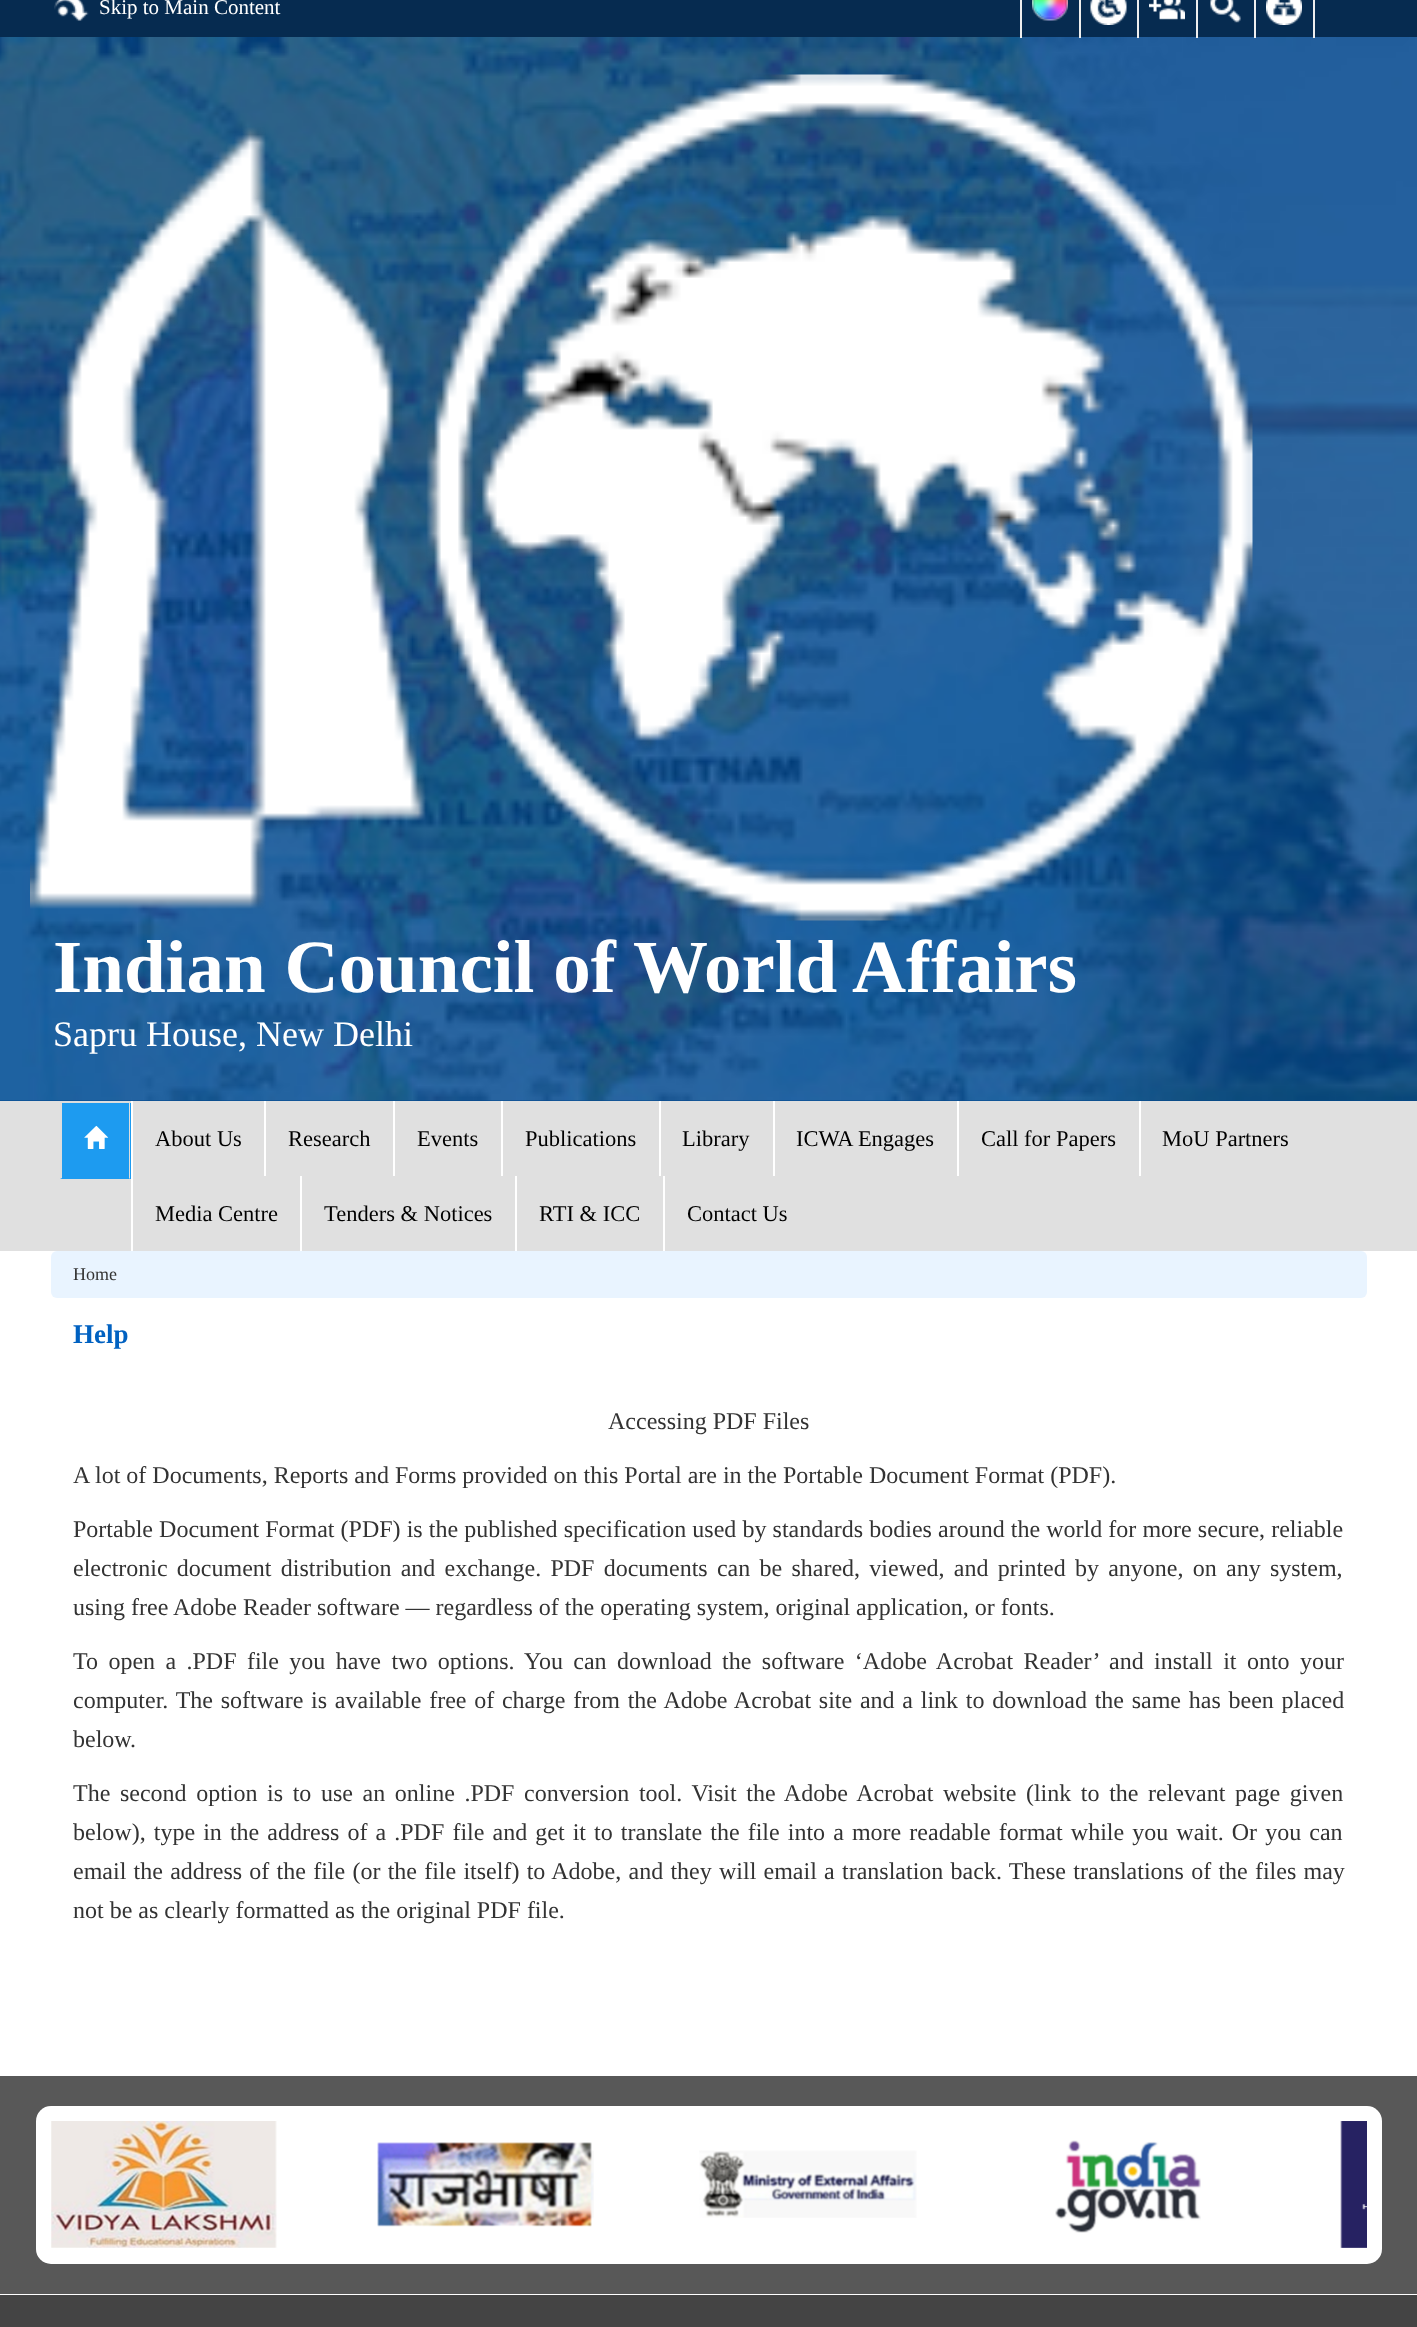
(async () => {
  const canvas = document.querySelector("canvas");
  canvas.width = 1417;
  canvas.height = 2327;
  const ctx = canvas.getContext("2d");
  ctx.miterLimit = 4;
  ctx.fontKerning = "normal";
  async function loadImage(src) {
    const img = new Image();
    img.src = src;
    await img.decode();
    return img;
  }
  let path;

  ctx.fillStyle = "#ffffff";
  ctx.fillRect(0, 0, 1417, 2327);
  ctx.fillStyle = "#062b50";
  ctx.fillRect(0, 0, 1417, 37);
  ctx.drawImage(await loadImage("img/1.png"), 54, 0, 35, 21);
  ctx.fillStyle = "#02488f";
  ctx.fillRect(0, 1100, 1417, 1);
  ctx.drawImage(await loadImage("img/7.png"), 0, 37, 1417, 1064);
  ctx.fillStyle = "#eeeeee";
  ctx.fillRect(1020, 0, 2, 38);
  ctx.drawImage(await loadImage("img/2.png"), 1032, 0, 36, 21);
  ctx.fillRect(1079, 0, 2, 38);
  ctx.drawImage(await loadImage("img/3.png"), 1090, 0, 37, 25);
  ctx.fillRect(1137, 0, 2, 38);
  ctx.drawImage(await loadImage("img/4.png"), 1149, 0, 36, 20);
  ctx.fillRect(1196, 0, 2, 38);
  ctx.drawImage(await loadImage("img/5.png"), 1210, 0, 31, 23);
  ctx.fillRect(1254, 0, 2, 38);
  ctx.drawImage(await loadImage("img/6.png"), 1266, 0, 36, 25);
  ctx.fillRect(1313, 0, 2, 38);
  ctx.drawImage(await loadImage("img/8.png"), 30, 74, 1223, 847);
  for (const [x, y, w, h, color] of [
    [0, 1101, 1417, 150, "#e0e0e0"],
    [60, 1103, 71, 76, "#1d9bf0"],
    [60, 1101, 71, 2, "#dddddd"],
  ]) {
    ctx.fillStyle = color;
    ctx.fillRect(x, y, w, h);
  }
  path = new Path2D("M130 1101V1179L129 1178V1102Z");
  ctx.fill(path);
  path = new Path2D("M60 1179V1101L62 1102V1178Z");
  ctx.fill(path);
  ctx.drawImage(await loadImage("img/9.png"), 84, 1125, 25, 24);
  for (const [x, y, w, h, color] of [
    [131, 1101, 2, 150, "#ffffff"],
    [264, 1101, 2, 75, "#ffffff"],
    [393, 1101, 2, 75, "#ffffff"],
    [501, 1101, 2, 75, "#ffffff"],
    [659, 1101, 2, 75, "#ffffff"],
    [773, 1101, 2, 75, "#ffffff"],
    [957, 1101, 2, 75, "#ffffff"],
    [1139, 1101, 2, 75, "#ffffff"],
    [300, 1176, 2, 75, "#ffffff"],
    [515, 1176, 2, 75, "#ffffff"],
    [663, 1176, 2, 75, "#ffffff"],
  ]) {
    ctx.fillStyle = color;
    ctx.fillRect(x, y, w, h);
  }
  ctx.fillStyle = "#e9f4ff";
  ctx.beginPath();
  ctx.roundRect(51, 1251, 1316, 47, 6);
  ctx.fill();
  ctx.fillStyle = "#585858";
  ctx.fillRect(0, 2076, 1417, 218);
  ctx.fillStyle = "#ffffff";
  ctx.beginPath();
  ctx.roundRect(36, 2106, 1346, 158, 15);
  ctx.fill();
  ctx.drawImage(await loadImage("img/10.png"), 51, 2121, 226, 127);
  ctx.drawImage(await loadImage("img/11.png"), 377, 2142, 217, 85);
  ctx.drawImage(await loadImage("img/12.png"), 699, 2150, 218, 68);
  ctx.drawImage(await loadImage("img/13.png"), 1055, 2140, 146, 93);
  ctx.drawImage(await loadImage("img/14.png"), 1340, 2121, 27, 127);
  ctx.fillStyle = "#444444";
  ctx.fillRect(0, 2295, 1417, 32);
  ctx.font = "21px Liberation Serif";
  ctx.fillStyle = "#ffffff";
  ctx.fillText("Skip to Main Content", 99, 14);
  ctx.font = "bold 75px Liberation Serif";
  ctx.fillText("Indian Council of World Affairs", 53, 992);
  ctx.font = "36px Liberation Serif";
  ctx.fillText("Sapru House, New Delhi", 53, 1046);
  ctx.font = "22.5px Liberation Serif";
  ctx.fillStyle = "#000000";
  for (const [text, x, y] of [
    ["About Us", 155, 1146],
    ["Research", 288, 1146],
    ["Events", 417, 1146],
    ["Publications", 525, 1146],
    ["Library", 682, 1146],
    ["ICWA Engages", 796, 1146],
    ["Call for Papers", 981, 1146],
    ["MoU Partners", 1162, 1146],
    ["Media Centre", 155, 1221],
    ["Tenders & Notices", 324, 1221],
    ["RTI & ICC", 539, 1221],
    ["Contact Us", 687, 1221],
  ]) {
    ctx.fillText(text, x, y);
  }
  ctx.font = "18px Liberation Serif";
  ctx.fillStyle = "#333333";
  ctx.fillText("Home", 73, 1280);
  ctx.font = "bold 27px Liberation Serif";
  ctx.fillStyle = "#0061c1";
  ctx.fillText("Help", 73, 1343);
  ctx.font = "24px Liberation Serif";
  ctx.fillStyle = "#333333";
  ctx.fillText("Accessing PDF Files", 608, 1429);
  ctx.fillText("A lot of Documents, Reports and Forms provided on this Portal are in the Portable Document Format (PDF).", 73, 1483);
  ctx.wordSpacing = "0.1px";
  ctx.fillText("Portable Document Format (PDF) is the published specification used by standards bodies around the world for more secure, reliable", 73, 1537);
  ctx.wordSpacing = "3.25px";
  ctx.fillText("electronic document distribution and exchange. PDF documents can be shared, viewed, and printed by anyone, on any system,", 73, 1576);
  ctx.wordSpacing = "0px";
  ctx.fillText("using free Adobe Reader software — regardless of the operating system, original application, or fonts.", 73, 1615);
  ctx.wordSpacing = "4.4px";
  ctx.fillText("To open a .PDF file you have two options. You can download the software ‘Adobe Acrobat Reader’ and install it onto your", 73, 1669);
  ctx.wordSpacing = "1.75px";
  ctx.fillText("computer. The software is available free of charge from the Adobe Acrobat site and a link to download the same has been placed", 73, 1708);
  ctx.wordSpacing = "0px";
  ctx.fillText("below.", 73, 1747);
  ctx.wordSpacing = "3.6px";
  ctx.fillText("The second option is to use an online .PDF conversion tool. Visit the Adobe Acrobat website (link to the relevant page given", 73, 1801);
  ctx.wordSpacing = "2.1px";
  ctx.fillText("below), type in the address of a .PDF file and get it to translate the file into a more readable format while you wait. Or you can", 73, 1840);
  ctx.wordSpacing = "1.25px";
  ctx.fillText("email the address of the file (or the file itself) to Adobe, and they will email a translation back. These translations of the files may", 73, 1879);
  ctx.wordSpacing = "0px";
  ctx.fillText("not be as clearly formatted as the original PDF file.", 73, 1918);
})();
